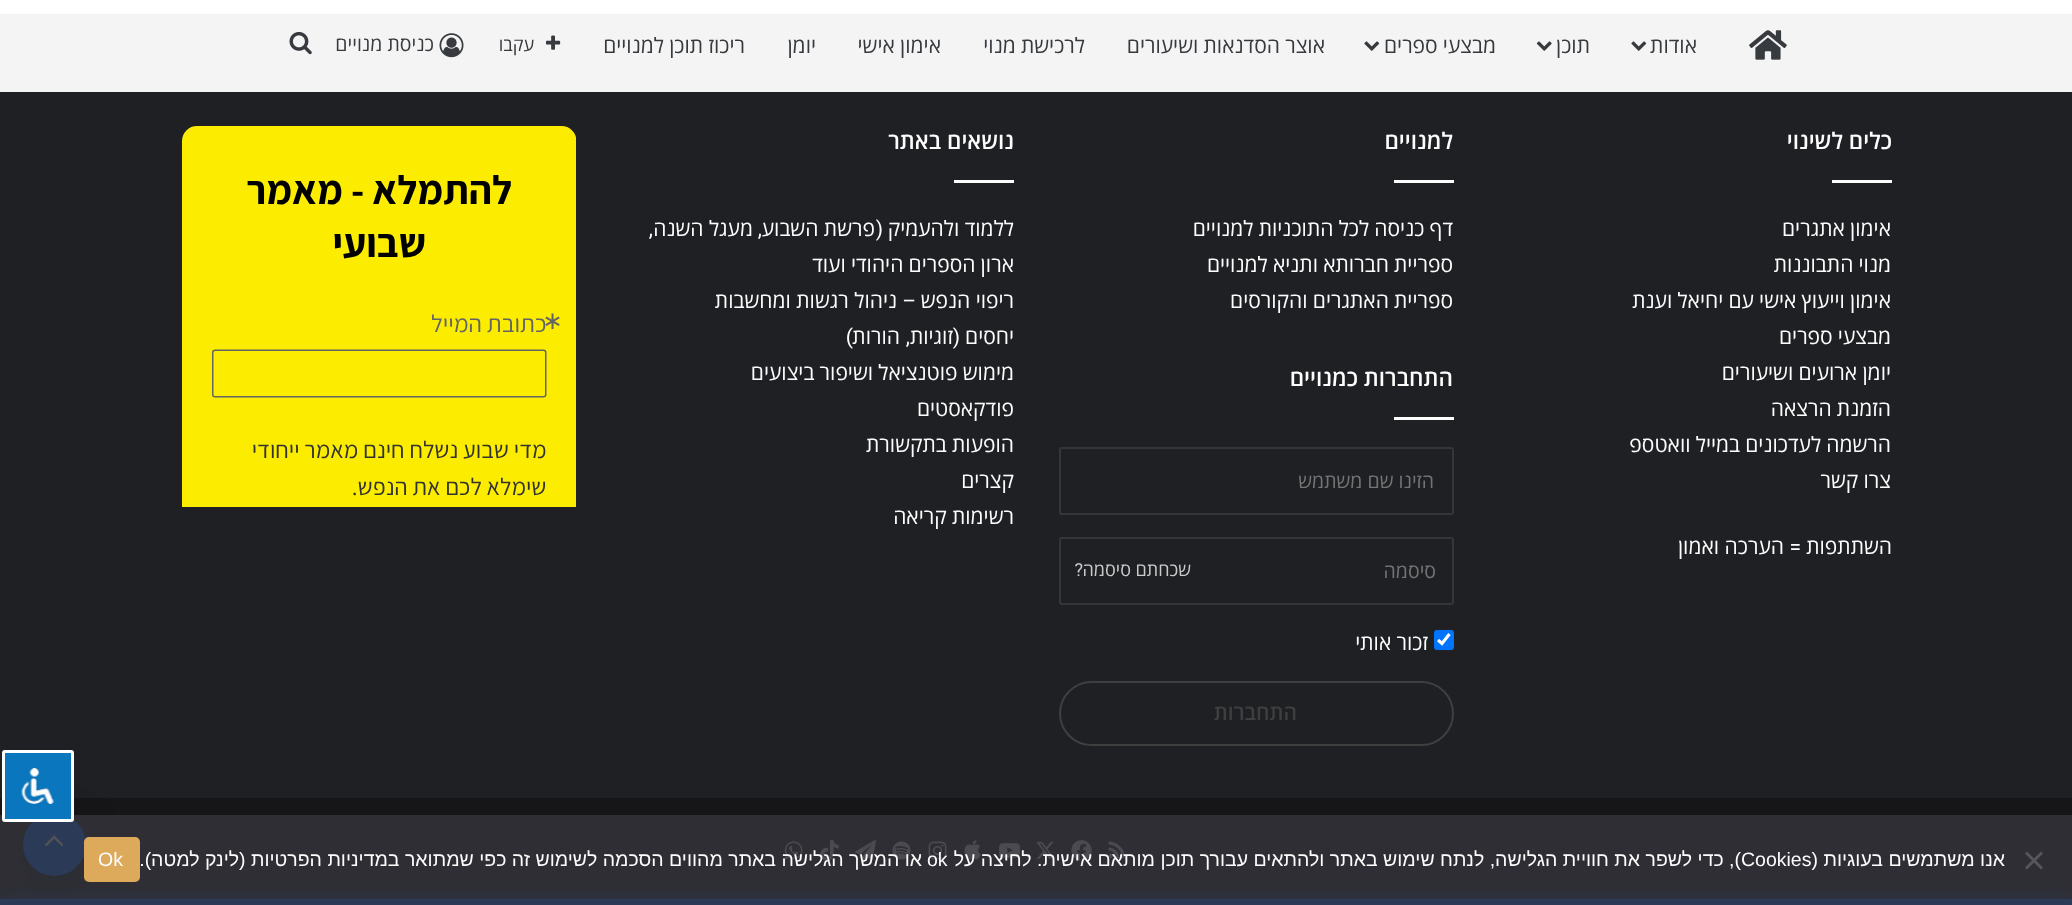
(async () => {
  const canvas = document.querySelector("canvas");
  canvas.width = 2072;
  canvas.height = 905;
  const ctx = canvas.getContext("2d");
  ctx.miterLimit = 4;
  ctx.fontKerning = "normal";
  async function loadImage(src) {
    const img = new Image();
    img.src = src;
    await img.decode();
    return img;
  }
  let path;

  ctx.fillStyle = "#ffffff";
  ctx.fillRect(0, 0, 2072, 905);
  ctx.fillStyle = "#f4f4f4";
  ctx.fillRect(0, 14, 2072, 78);
  ctx.drawImage(await loadImage("img/1.png"), 1749, 30, 38, 30);
  ctx.drawImage(await loadImage("img/2.png"), 1631, 41, 16, 10);
  ctx.drawImage(await loadImage("img/3.png"), 1536, 41, 16, 10);
  ctx.drawImage(await loadImage("img/2.png"), 1364, 41, 16, 10);
  ctx.drawImage(await loadImage("img/4.png"), 546, 35, 15, 15);
  ctx.drawImage(await loadImage("img/5.png"), 439, 33, 25, 25);
  ctx.drawImage(await loadImage("img/6.png"), 289, 31, 23, 24);
  for (const [x, y, w, h, color] of [
    [0, 92, 2072, 706, "#1f2024"],
    [1832, 180, 60, 3, "#fdfdfd"],
    [1394, 180, 60, 3, "#fdfdfd"],
    [1394, 417, 60, 3, "#fdfdfd"],
  ]) {
    ctx.fillStyle = color;
    ctx.fillRect(x, y, w, h);
  }
  ctx.beginPath();
  ctx.roundRect(1060, 448, 393, 66, 2);
  ctx.strokeStyle = "#35363a";
  ctx.lineWidth = 2;
  ctx.stroke();
  ctx.beginPath();
  ctx.roundRect(1060, 538, 393, 66, 2);
  ctx.stroke();
  ctx.fillStyle = "#0074fd";
  ctx.beginPath();
  ctx.roundRect(1434, 630, 20, 20, 3);
  ctx.fill();
  path = new Path2D("M1438 640L1442 643.5L1449.5 634");
  ctx.strokeStyle = "#fdfdfd";
  ctx.lineWidth = 3.1;
  ctx.stroke(path);
  ctx.beginPath();
  ctx.roundRect(1060, 682, 393, 63, 31.5);
  ctx.strokeStyle = "#3f3f3f";
  ctx.lineWidth = 2;
  ctx.stroke();
  ctx.fillStyle = "#fdfdfd";
  ctx.fillRect(954, 180, 60, 3);
  ctx.drawImage(await loadImage("img/7.png"), 182, 126, 394, 381);
  ctx.fillStyle = "#161619";
  ctx.fillRect(0, 798, 2072, 101);
  ctx.drawImage(await loadImage("img/8.png"), 1108, 841, 17, 17);
  ctx.drawImage(await loadImage("img/9.png"), 1071, 840, 21, 21);
  ctx.drawImage(await loadImage("img/10.png"), 1036, 841, 19, 18);
  ctx.drawImage(await loadImage("img/11.png"), 999, 843, 21, 15);
  ctx.drawImage(await loadImage("img/12.png"), 964, 840, 17, 20);
  ctx.drawImage(await loadImage("img/13.png"), 928, 841, 19, 19);
  ctx.drawImage(await loadImage("img/14.png"), 892, 841, 19, 19);
  ctx.drawImage(await loadImage("img/15.png"), 855, 840, 21, 21);
  ctx.drawImage(await loadImage("img/16.png"), 820, 839, 19, 22);
  ctx.drawImage(await loadImage("img/17.png"), 784, 841, 19, 19);
  ctx.fillStyle = "rgba(0, 0, 0, 0.3)";
  ctx.filter = "blur(19px)";
  ctx.beginPath();
  ctx.roundRect(23, 821, 63, 63, 31.5);
  ctx.fill();
  ctx.filter = "none";
  ctx.fillStyle = "#0669ff";
  ctx.beginPath();
  ctx.arc(54.5, 844.5, 31.5, 0, Math.PI * 2);
  ctx.fill();
  ctx.drawImage(await loadImage("img/18.png"), 44, 835, 20, 12);
  ctx.fillStyle = "rgba(0, 136, 255, 0.7)";
  ctx.filter = "blur(7.5px)";
  ctx.beginPath();
  ctx.rect(0, 899, 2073, 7);
  ctx.fill();
  ctx.filter = "none";
  ctx.fillStyle = "#0669ff";
  ctx.fillRect(0, 899, 2072, 6);
  ctx.fillStyle = "rgba(50, 50, 58, 0.85)";
  ctx.fillRect(0, 815, 2072, 90);
  ctx.fillStyle = "#57575b";
  path = new Path2D("M2041 851.5L2043 853.5L2027 869.5L2025 867.5Z");
  ctx.fill(path);
  path = new Path2D("M2025 853.5L2027 851.5L2043 867.5L2041 869.5Z");
  ctx.fill(path);
  ctx.fillStyle = "#dda95a";
  ctx.beginPath();
  ctx.roundRect(84, 837, 56, 45, 5);
  ctx.fill();
  ctx.fillStyle = "#0a76be";
  ctx.beginPath();
  ctx.roundRect(3.5, 751.5, 69, 69, 1.5);
  ctx.fill();
  ctx.strokeStyle = "#ffffff";
  ctx.lineWidth = 3;
  ctx.stroke();
  ctx.drawImage(await loadImage("img/19.png"), 21, 768, 33, 36);
  ctx.direction = "rtl";
  ctx.font = "21px Open Sans";
  ctx.fillStyle = "#36393e";
  ctx.fillText("אודות", 1697, 53);
  ctx.fillText("תוכן", 1590, 53);
  ctx.wordSpacing = "-0.25px";
  for (const [text, x, y] of [
    ["מבצעי ספרים", 1496, 53],
    ["אוצר הסדנאות ושיעורים", 1325, 53],
    ["לרכישת מנוי", 1085, 53],
    ["אימון אישי", 941, 53],
  ]) {
    ctx.fillText(text, x, y);
  }
  ctx.wordSpacing = "0px";
  ctx.fillText("יומן", 816, 53);
  ctx.wordSpacing = "-0.25px";
  ctx.fillText("ריכוז תוכן למנויים", 745, 53);
  ctx.wordSpacing = "0px";
  ctx.font = "18px Open Sans";
  ctx.fillText("עקבו", 534, 51);
  ctx.font = "19.5px Open Sans";
  ctx.fillText("כניסת מנויים", 434, 51);
  ctx.font = "600 22.5px Open Sans";
  ctx.fillStyle = "#fdfdfd";
  ctx.fillText("כלים לשינוי", 1892, 149);
  ctx.wordSpacing = "-0.25px";
  ctx.font = "21px Open Sans";
  for (const [text, x, y] of [
    ["אימון אתגרים", 1891, 236],
    ["מנוי התבוננות", 1891, 272],
    ["אימון וייעוץ אישי עם יחיאל וענת", 1891, 308],
    ["מבצעי ספרים", 1891, 344],
    ["יומן ארועים ושיעורים", 1891, 380],
    ["הזמנת הרצאה", 1891, 416],
    ["הרשמה לעדכונים במייל וואטספ", 1891, 452],
    ["צרו קשר", 1891, 488],
  ]) {
    ctx.fillText(text, x, y);
  }
  ctx.wordSpacing = "0px";
  ctx.fillText("השתתפות", 1892, 554);
  ctx.font = "21px Roboto";
  ctx.fillText("=", 1801, 554);
  ctx.font = "21px Open Sans";
  ctx.fillText("הערכה ואמון", 1784, 554);
  ctx.font = "600 22.5px Open Sans";
  ctx.fillText("למנויים", 1453, 149);
  ctx.wordSpacing = "-0.25px";
  ctx.font = "21px Open Sans";
  for (const [text, x, y] of [
    ["דף כניסה לכל התוכניות למנויים", 1453, 236],
    ["ספריית חברותא ותניא למנויים", 1453, 272],
    ["ספריית האתגרים והקורסים", 1453, 308],
  ]) {
    ctx.fillText(text, x, y);
  }
  ctx.wordSpacing = "0px";
  ctx.font = "600 22.5px Open Sans";
  ctx.fillText("התחברות כמנויים", 1453, 386);
  ctx.font = "19.5px Open Sans";
  ctx.fillStyle = "#747474";
  ctx.fillText("הזינו שם משתמש", 1434, 488);
  ctx.fillText("סיסמה", 1436, 578);
  ctx.font = "18px Open Sans";
  ctx.fillStyle = "#cacaca";
  ctx.fillText("שכחתם סיסמה", 1191, 576);
  ctx.font = "18px Roboto";
  ctx.fillText("?", 1083, 576);
  ctx.wordSpacing = "-0.25px";
  ctx.font = "21px Open Sans";
  ctx.fillStyle = "#fdfdfd";
  ctx.fillText("זכור אותי", 1428, 650);
  ctx.wordSpacing = "0px";
  ctx.font = "600 21px Open Sans";
  ctx.fillStyle = "#3f3f3f";
  ctx.fillText("התחברות", 1297, 720);
  ctx.font = "600 22.5px Open Sans";
  ctx.fillStyle = "#fdfdfd";
  ctx.fillText("נושאים באתר", 1014, 149);
  ctx.font = "21px Open Sans";
  ctx.fillText("ללמוד ולהעמיק", 1014, 236);
  ctx.font = "21px Roboto";
  ctx.fillText("(", 883, 236);
  ctx.font = "21px Open Sans";
  ctx.fillText("פרשת השבוע", 875, 236);
  ctx.font = "21px Roboto";
  ctx.fillText(",", 762, 236);
  ctx.font = "21px Open Sans";
  ctx.fillText("מעגל השנה", 753, 236);
  ctx.font = "21px Roboto";
  ctx.fillText(",", 653, 236);
  ctx.wordSpacing = "-0.25px";
  ctx.font = "21px Open Sans";
  ctx.fillText("ארון הספרים היהודי ועוד", 1014, 272);
  ctx.wordSpacing = "0px";
  ctx.fillText("ריפוי הנפש", 1014, 308);
  ctx.font = "21px Roboto";
  ctx.fillText("–", 916, 308);
  ctx.font = "21px Open Sans";
  ctx.fillText("ניהול רגשות ומחשבות", 897, 308);
  ctx.fillText("יחסים", 1014, 344);
  ctx.font = "21px Roboto";
  ctx.fillText("(", 960, 344);
  ctx.font = "21px Open Sans";
  ctx.fillText("זוגיות", 953, 344);
  ctx.font = "21px Roboto";
  ctx.fillText(",", 910, 344);
  ctx.font = "21px Open Sans";
  ctx.fillText("הורות", 900, 344);
  ctx.font = "21px Roboto";
  ctx.fillText(")", 853, 344);
  ctx.wordSpacing = "-0.25px";
  ctx.font = "21px Open Sans";
  ctx.fillText("מימוש פוטנציאל ושיפור ביצועים", 1014, 380);
  ctx.wordSpacing = "0px";
  ctx.fillText("פודקאסטים", 1014, 416);
  ctx.wordSpacing = "-0.25px";
  ctx.fillText("הופעות בתקשורת", 1014, 452);
  ctx.wordSpacing = "0px";
  ctx.fillText("קצרים", 1014, 488);
  ctx.wordSpacing = "-0.25px";
  ctx.fillText("רשימות קריאה", 1014, 524);
  ctx.wordSpacing = "0px";
  ctx.font = "19.5px Liberation Sans";
  ctx.fillText("אנו משתמשים בעוגיות (", 2005, 866);
  ctx.direction = "ltr";
  ctx.fillText("Cookies", 1741, 866);
  ctx.direction = "rtl";
  ctx.fillText("), כדי לשפר את חוויית הגלישה, לנתח שימוש באתר ולהתאים עבורך תוכן מותאם אישית. לחיצה על", 1741, 866);
  ctx.direction = "ltr";
  ctx.fillText("ok", 927, 866);
  ctx.direction = "rtl";
  ctx.fillText("או המשך הגלישה באתר מהווים הסכמה לשימוש זה כפי שמתואר במדיניות הפרטיות (לינק למטה).", 922, 866);
  ctx.direction = "ltr";
  ctx.fillText("Ok", 98, 866);
})();
